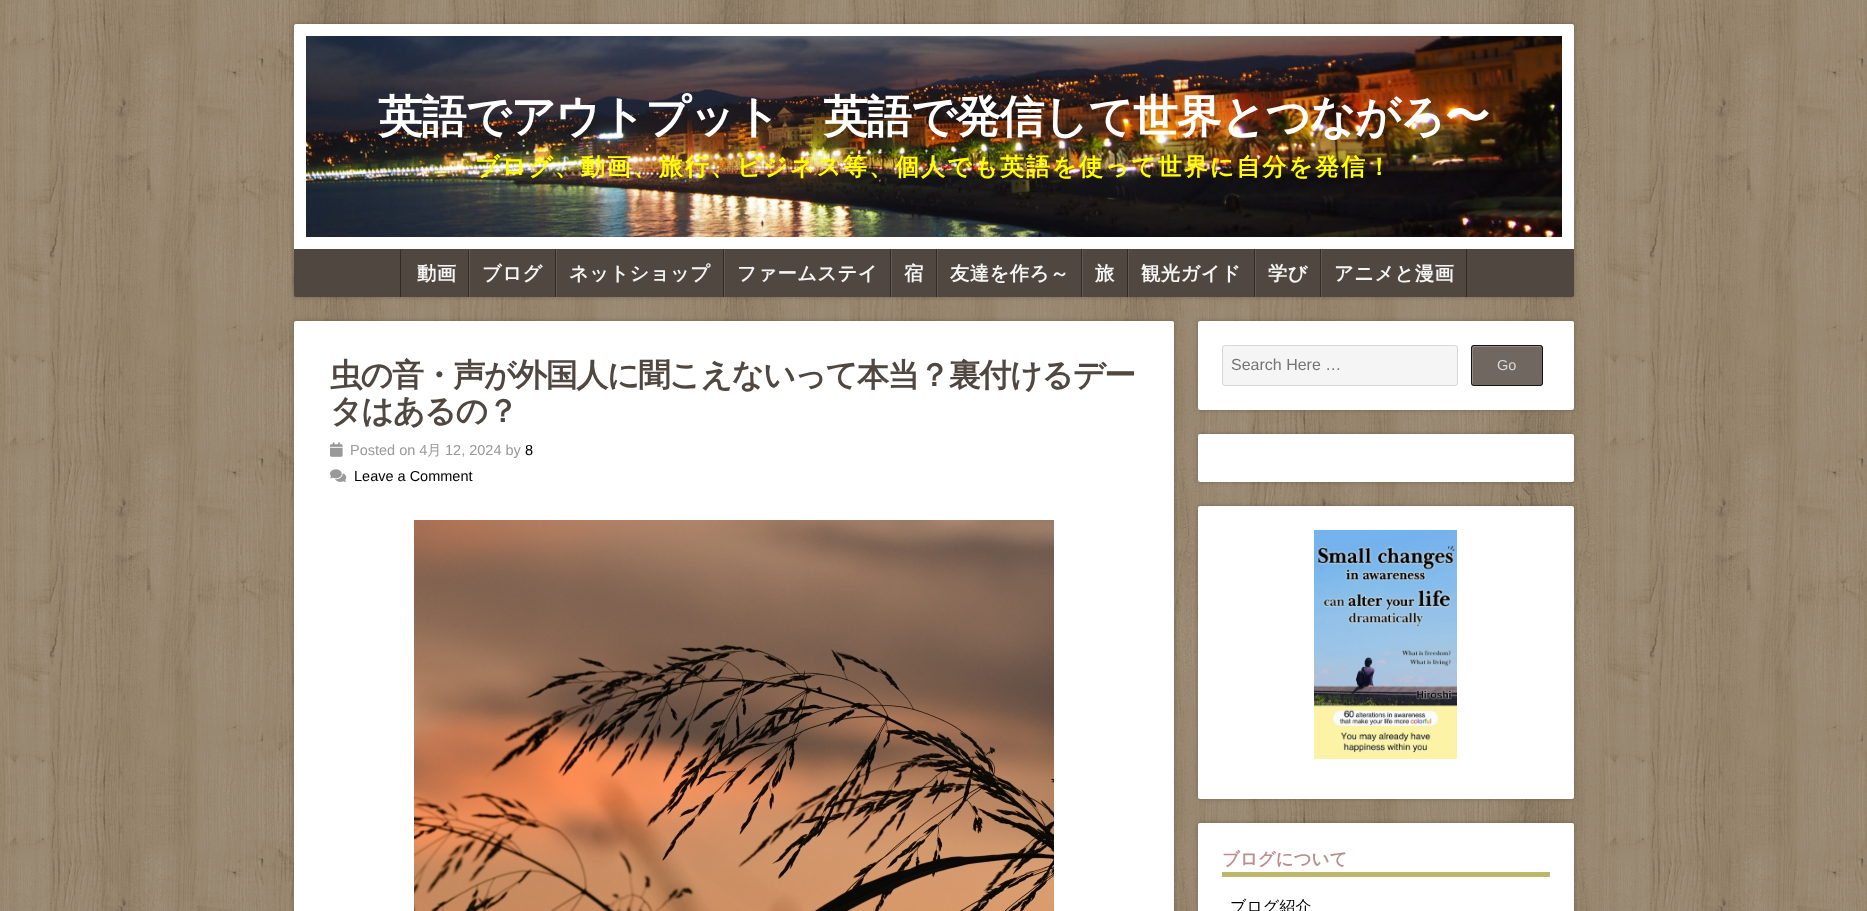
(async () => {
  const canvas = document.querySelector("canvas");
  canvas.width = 1867;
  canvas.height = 911;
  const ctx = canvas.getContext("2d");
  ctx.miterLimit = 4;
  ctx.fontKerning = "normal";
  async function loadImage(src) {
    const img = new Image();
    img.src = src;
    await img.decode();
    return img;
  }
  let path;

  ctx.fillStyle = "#ffffff";
  ctx.fillRect(0, 0, 1867, 911);
  ctx.drawImage(await loadImage("img/1.png"), 0, 0, 1867, 911);
  ctx.fillStyle = "rgba(0, 0, 0, 0.24)";
  ctx.filter = "blur(2px)";
  ctx.beginPath();
  ctx.roundRect(294, 24, 1280, 273, 2);
  ctx.fill();
  ctx.filter = "none";
  ctx.fillStyle = "#ffffff";
  ctx.beginPath();
  ctx.roundRect(294, 24, 1280, 225, [2, 2, 0, 0]);
  ctx.fill();
  ctx.drawImage(await loadImage("img/2.png"), 306, 36, 1256, 201);
  ctx.fillStyle = "#504741";
  ctx.beginPath();
  ctx.roundRect(294, 249, 1280, 48, [0, 0, 2, 2]);
  ctx.fill();
  for (const [x, y, w, h, color] of [
    [400, 250, 1, 47, "#302b27"],
    [468, 250, 1, 47, "#302b27"],
    [555, 249, 1, 48, "#302b27"],
    [469, 249, 1, 48, "#625954"],
    [723, 249, 1, 48, "#302b27"],
    [556, 249, 1, 48, "#625954"],
    [890, 249, 1, 48, "#302b27"],
    [724, 249, 1, 48, "#625954"],
    [936, 249, 1, 48, "#302b27"],
    [891, 249, 1, 48, "#625954"],
    [1081, 249, 1, 48, "#302b27"],
    [937, 249, 1, 48, "#625954"],
    [1127, 249, 1, 48, "#302b27"],
    [1082, 249, 1, 48, "#625954"],
    [1254, 249, 1, 48, "#302b27"],
    [1128, 249, 1, 48, "#625954"],
    [1320, 249, 1, 48, "#302b27"],
    [1255, 249, 1, 48, "#625954"],
    [1466, 249, 1, 48, "#302b27"],
    [1321, 249, 1, 48, "#625954"],
  ]) {
    ctx.fillStyle = color;
    ctx.fillRect(x, y, w, h);
  }
  ctx.fillStyle = "rgba(0, 0, 0, 0.24)";
  ctx.filter = "blur(2px)";
  ctx.beginPath();
  ctx.roundRect(294, 321, 880, 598, 2);
  ctx.fill();
  ctx.filter = "none";
  ctx.fillStyle = "#ffffff";
  ctx.beginPath();
  ctx.roundRect(294, 321, 880, 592, 2);
  ctx.fill();
  ctx.drawImage(await loadImage("img/3.png"), 330, 442, 13, 15);
  ctx.drawImage(await loadImage("img/4.png"), 330, 469, 17, 13);
  ctx.drawImage(await loadImage("img/5.png"), 414, 520, 640, 391);
  ctx.fillStyle = "rgba(0, 0, 0, 0.24)";
  ctx.filter = "blur(2px)";
  ctx.beginPath();
  ctx.roundRect(1198, 321, 376, 89, 2);
  ctx.fill();
  ctx.filter = "none";
  ctx.fillStyle = "#ffffff";
  ctx.beginPath();
  ctx.roundRect(1198, 321, 376, 89, 2);
  ctx.fill();
  ctx.fillStyle = "#f5f5f5";
  ctx.beginPath();
  ctx.roundRect(1222, 345, 236, 41, 3);
  ctx.fill();
  ctx.beginPath();
  ctx.roundRect(1222.5, 345.5, 235, 40, 2.5);
  ctx.strokeStyle = "rgba(0, 0, 0, 0.12)";
  ctx.stroke();
  ctx.fillStyle = "#706760";
  ctx.beginPath();
  ctx.roundRect(1471, 345, 72, 41, 3);
  ctx.fill();
  ctx.fillStyle = "#928b86";
  path = new Path2D("M1475 347H1542L1540 346H1485C1472 346 1472 343 1472 354V377C1472 378 1471 384 1473 385V355C1473 354 1472 347 1475 347Z");
  ctx.fill(path);
  ctx.beginPath();
  ctx.roundRect(1471.5, 345.5, 71, 40, 2.5);
  ctx.strokeStyle = "rgba(0, 0, 0, 0.8)";
  ctx.stroke();
  ctx.fillStyle = "rgba(0, 0, 0, 0.24)";
  ctx.filter = "blur(2px)";
  ctx.beginPath();
  ctx.roundRect(1198, 434, 376, 48, 2);
  ctx.fill();
  ctx.filter = "none";
  ctx.fillStyle = "#ffffff";
  ctx.beginPath();
  ctx.roundRect(1198, 434, 376, 48, 2);
  ctx.fill();
  ctx.fillStyle = "rgba(0, 0, 0, 0.24)";
  ctx.filter = "blur(2px)";
  ctx.beginPath();
  ctx.roundRect(1198, 506, 376, 293, 2);
  ctx.fill();
  ctx.filter = "none";
  ctx.fillStyle = "#ffffff";
  ctx.beginPath();
  ctx.roundRect(1198, 506, 376, 293, 2);
  ctx.fill();
  ctx.drawImage(await loadImage("img/6.png"), 1314, 530, 143, 229);
  ctx.fillStyle = "rgba(0, 0, 0, 0.24)";
  ctx.filter = "blur(2px)";
  ctx.beginPath();
  ctx.roundRect(1198, 823, 376, 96, 2);
  ctx.fill();
  ctx.filter = "none";
  ctx.fillStyle = "#ffffff";
  ctx.beginPath();
  ctx.roundRect(1198, 823, 376, 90, 2);
  ctx.fill();
  ctx.fillStyle = "#bdb76b";
  ctx.fillRect(1222, 872, 328, 5);
  ctx.letterSpacing = "-1px";
  ctx.font = "bold 44.8px WenQuanYi Zen Hei";
  ctx.fillStyle = "#ffffff";
  ctx.fillText("英語でアウトプット　英語で発信して世界とつながろ〜", 378, 132);
  ctx.letterSpacing = "2px";
  ctx.font = "bold 24px WenQuanYi Zen Hei";
  ctx.fillStyle = "#ffff00";
  ctx.fillText("ブログ、動画、旅行、ビジネス等、個人でも英語を使って世界に自分を発信！", 475, 175);
  ctx.letterSpacing = "0.5px";
  ctx.font = "bold 19.25px WenQuanYi Zen Hei";
  ctx.fillStyle = "#f5f5f5";
  for (const [text, x, y] of [
    ["動画", 417, 280],
    ["ブログ", 482, 280],
    ["ネットショップ", 569, 280],
    ["ファームステイ", 737, 280],
    ["宿", 904, 280],
    ["友達を作ろ～", 950, 280],
    ["旅", 1095, 280],
    ["観光ガイド", 1141, 280],
    ["学び", 1268, 280],
    ["アニメと漫画", 1334, 280],
  ]) {
    ctx.fillText(text, x, y);
  }
  ctx.letterSpacing = "-1.4px";
  ctx.font = "bold 32px WenQuanYi Zen Hei";
  ctx.fillStyle = "#504741";
  ctx.fillText("虫の音・声が外国人に聞こえないって本当？裏付けるデー", 330, 386);
  ctx.fillText("タはあるの？", 330, 422);
  ctx.letterSpacing = "0px";
  ctx.font = "14.5px Liberation Sans";
  ctx.fillStyle = "#999999";
  ctx.fillText("Posted on 4", 350, 455);
  ctx.font = "500 14.5px WenQuanYi Zen Hei";
  ctx.fillText("月", 427, 455);
  ctx.font = "14.5px Liberation Sans";
  ctx.fillText("12, 2024 by", 445, 455);
  ctx.fillStyle = "#000000";
  ctx.fillText("8", 525, 455);
  ctx.fillText("Leave a Comment", 354, 481);
  ctx.font = "16px Liberation Sans";
  ctx.fillStyle = "#757575";
  ctx.fillText("Search Here …", 1231, 370);
  ctx.font = "14.5px Liberation Sans";
  ctx.fillStyle = "#dbd9d7";
  ctx.fillText("Go", 1497, 370);
  ctx.font = "bold 17.5px WenQuanYi Zen Hei";
  ctx.fillStyle = "#bc8f8f";
  ctx.fillText("ブログについて", 1222, 865);
  ctx.font = "500 16px WenQuanYi Zen Hei";
  ctx.fillStyle = "#000000";
  ctx.fillText("ブログ紹介", 1230, 912);
})();
